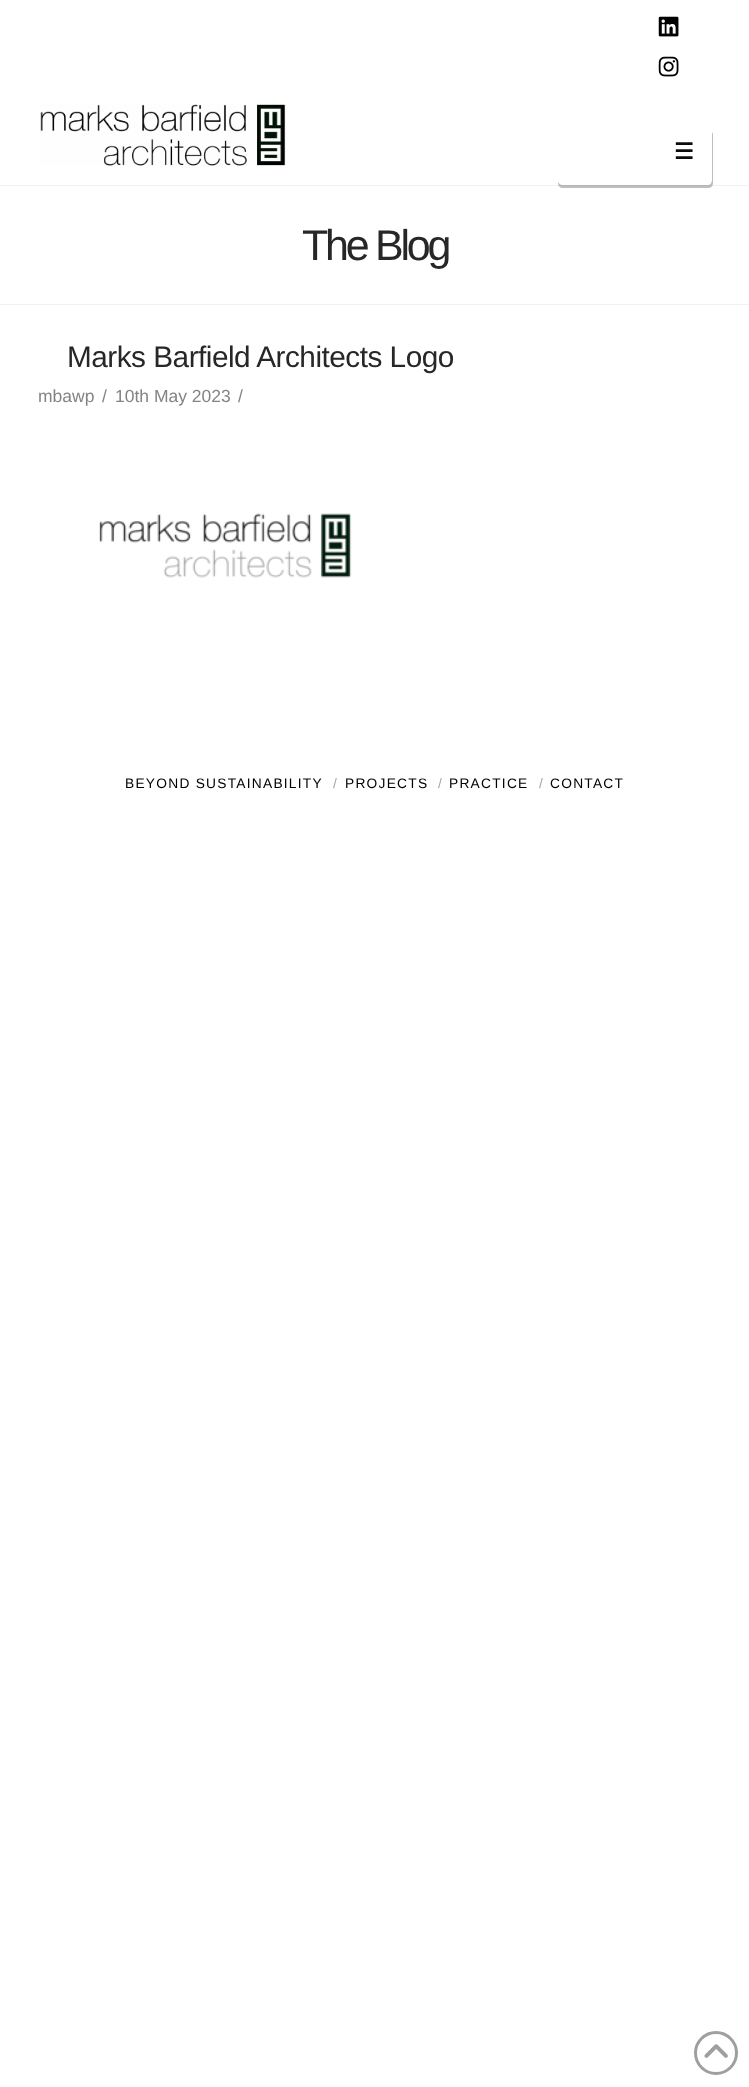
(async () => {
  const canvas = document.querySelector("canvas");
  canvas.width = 749;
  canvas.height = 2087;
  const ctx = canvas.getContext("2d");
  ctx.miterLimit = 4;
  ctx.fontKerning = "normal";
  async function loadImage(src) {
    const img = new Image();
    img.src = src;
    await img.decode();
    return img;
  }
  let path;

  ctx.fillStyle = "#ffffff";
  ctx.fillRect(0, 0, 749, 2087);
  ctx.drawImage(await loadImage("img/1.png"), 658, 16, 21, 21);
  ctx.drawImage(await loadImage("img/2.png"), 658, 56, 21, 21);
  ctx.drawImage(await loadImage("img/3.png"), 40, 104, 246, 62);
  ctx.fillStyle = "#f2f2f2";
  ctx.fillRect(0, 185, 749, 1);
  ctx.fillStyle = "rgba(0, 0, 0, 0.25)";
  path = new Path2D("M558 182V183C558 186 560 188 563 188H708C711 188 713 186 713 183V134L712 132V180C712 183 710 185 708 185H562C561 185 559 184 558 182Z");
  ctx.fill(path);
  ctx.fillStyle = "#f2f2f2";
  ctx.fillRect(0, 304, 749, 1);
  ctx.drawImage(await loadImage("img/4.png"), 99, 513, 253, 65);
  ctx.beginPath();
  ctx.arc(716, 2053, 20.5, 0, Math.PI * 2);
  ctx.strokeStyle = "#9f9f9f";
  ctx.lineWidth = 3;
  ctx.stroke();
  ctx.drawImage(await loadImage("img/5.png"), 704, 2044, 24, 14);
  ctx.font = "bold 22px DejaVu Sans";
  ctx.fillStyle = "#0c0c0c";
  ctx.fillText("☰", 674, 159);
  ctx.letterSpacing = "-3.25px";
  ctx.font = "43px Liberation Sans";
  ctx.fillStyle = "#272727";
  ctx.fillText("The Blog", 302, 260);
  ctx.letterSpacing = "-0.5px";
  ctx.font = "29.75px Liberation Sans";
  ctx.fillText("Marks Barfield Architects Logo", 67, 367);
  ctx.letterSpacing = "0px";
  ctx.font = "17.5px Liberation Sans";
  ctx.fillStyle = "#848484";
  for (const [text, x, y] of [
    ["mbawp", 38, 402],
    ["/", 102, 402],
    ["10th May 2023", 115, 402],
    ["/", 238, 402],
  ]) {
    ctx.fillText(text, x, y);
  }
  ctx.letterSpacing = "1.25px";
  ctx.font = "13.75px Liberation Sans";
  ctx.fillStyle = "#000000";
  ctx.fillText("BEYOND SUSTAINABILITY", 125, 788);
  ctx.letterSpacing = "0px";
  ctx.fillStyle = "#a6a6a6";
  ctx.fillText("/", 333, 788);
  ctx.letterSpacing = "1.25px";
  ctx.fillStyle = "#000000";
  ctx.fillText("PROJECTS", 345, 788);
  ctx.letterSpacing = "0px";
  ctx.fillStyle = "#a6a6a6";
  ctx.fillText("/", 438, 788);
  ctx.letterSpacing = "1.25px";
  ctx.fillStyle = "#000000";
  ctx.fillText("PRACTICE", 449, 788);
  ctx.letterSpacing = "0px";
  ctx.fillStyle = "#a6a6a6";
  ctx.fillText("/", 539, 788);
  ctx.letterSpacing = "1.25px";
  ctx.fillStyle = "#000000";
  ctx.fillText("CONTACT", 550, 788);
})();
